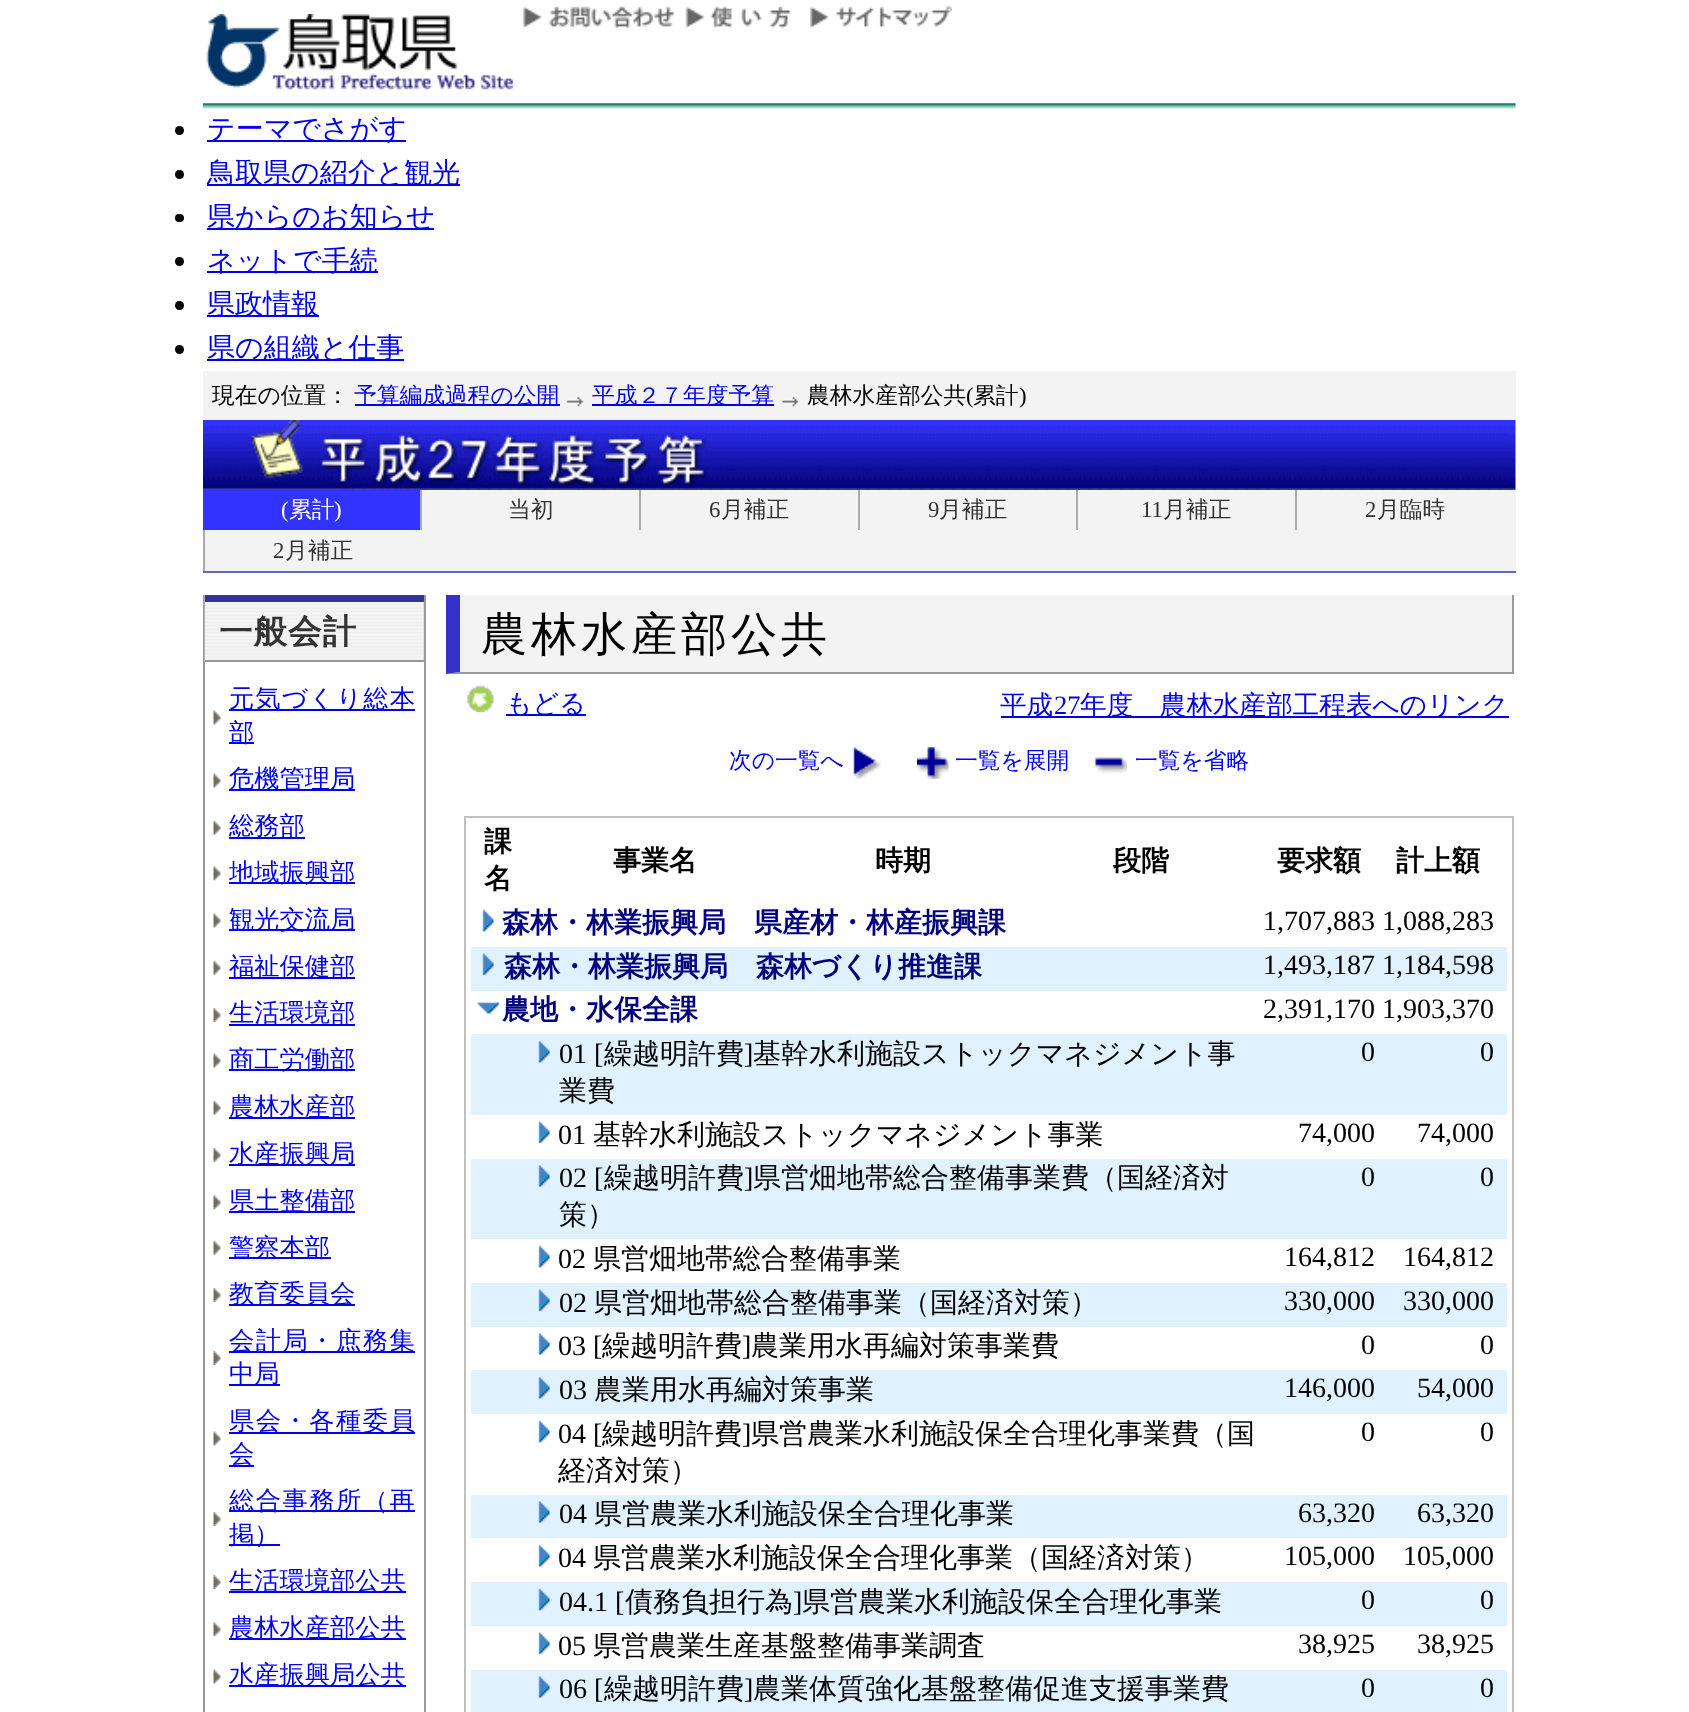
(async () => {
  const canvas = document.querySelector("canvas");
  canvas.width = 1689;
  canvas.height = 1712;
  const ctx = canvas.getContext("2d");
  ctx.miterLimit = 4;
  ctx.fontKerning = "normal";
  async function loadImage(src) {
    const img = new Image();
    img.src = src;
    await img.decode();
    return img;
  }
  let path;

  ctx.fillStyle = "#ffffff";
  ctx.fillRect(0, 0, 1689, 1712);
  ctx.drawImage(await loadImage("img/1.png"), 206, 14, 307, 76);
  ctx.drawImage(await loadImage("img/2.png"), 523, 6, 152, 23);
  ctx.drawImage(await loadImage("img/3.png"), 685, 6, 107, 23);
  ctx.drawImage(await loadImage("img/4.png"), 810, 5, 142, 24);
  ctx.drawImage(await loadImage("img/5.png"), 203, 103, 1313, 6);
  ctx.fillStyle = "#000000";
  ctx.beginPath();
  ctx.arc(179.5, 130.5, 4.5, 0, Math.PI * 2);
  ctx.fill();
  ctx.fillStyle = "#0000ee";
  ctx.fillRect(207, 140, 199, 2);
  ctx.fillStyle = "#000000";
  ctx.beginPath();
  ctx.arc(179.5, 174.5, 4.5, 0, Math.PI * 2);
  ctx.fill();
  ctx.fillStyle = "#0000ee";
  ctx.fillRect(207, 184, 253, 2);
  ctx.fillStyle = "#000000";
  ctx.beginPath();
  ctx.roundRect(175, 214, 9, 8, 4);
  ctx.fill();
  ctx.fillStyle = "#0000ee";
  ctx.fillRect(207, 228, 227, 2);
  ctx.fillStyle = "#000000";
  ctx.beginPath();
  ctx.arc(179.5, 261.5, 4.5, 0, Math.PI * 2);
  ctx.fill();
  ctx.fillStyle = "#0000ee";
  ctx.fillRect(207, 271, 171, 2);
  ctx.fillStyle = "#000000";
  ctx.beginPath();
  ctx.arc(179.5, 305.5, 4.5, 0, Math.PI * 2);
  ctx.fill();
  ctx.fillStyle = "#0000ee";
  ctx.fillRect(207, 315, 112, 2);
  ctx.fillStyle = "#000000";
  ctx.beginPath();
  ctx.arc(179.5, 349.5, 4.5, 0, Math.PI * 2);
  ctx.fill();
  for (const [x, y, w, h, color] of [
    [207, 359, 197, 2, "#0000ee"],
    [203, 371, 1313, 49, "#f3f3f3"],
    [355, 404, 205, 2, "#0000ee"],
  ]) {
    ctx.fillStyle = color;
    ctx.fillRect(x, y, w, h);
  }
  ctx.drawImage(await loadImage("img/6.png"), 566, 397, 18, 10);
  ctx.fillRect(592, 404, 182, 2);
  ctx.drawImage(await loadImage("img/7.png"), 781, 397, 18, 10);
  ctx.drawImage(await loadImage("img/8.png"), 203, 420, 1313, 70);
  for (const [x, y, w, h, color] of [
    [205, 490, 1311, 81, "#f3f3f3"],
    [203, 571, 1313, 2, "#6666cc"],
    [203, 490, 217, 40, "#3333ff"],
    [420, 490, 2, 40, "#aaaaaa"],
    [639, 490, 2, 40, "#aaaaaa"],
    [858, 490, 2, 40, "#aaaaaa"],
    [1076, 490, 2, 40, "#aaaaaa"],
    [1295, 490, 2, 40, "#aaaaaa"],
    [203, 530, 2, 41, "#aaaaaa"],
    [424, 595, 2, 1117, "#999999"],
    [203, 595, 2, 1117, "#999999"],
    [423, 602, 1, 58, "#ccccff"],
  ]) {
    ctx.fillStyle = color;
    ctx.fillRect(x, y, w, h);
  }
  ctx.drawImage(await loadImage("img/9.png"), 204, 595, 220, 67);
  ctx.fillStyle = "#333399";
  ctx.fillRect(205, 595, 219, 7);
  ctx.fillStyle = "#999999";
  ctx.fillRect(205, 660, 219, 2);
  ctx.drawImage(await loadImage("img/10.png"), 213, 710, 8, 15);
  ctx.fillStyle = "#0000ee";
  ctx.fillRect(229, 709, 186, 2);
  ctx.fillRect(229, 742, 25, 2);
  ctx.drawImage(await loadImage("img/10.png"), 213, 773, 8, 15);
  ctx.fillRect(229, 789, 126, 2);
  ctx.drawImage(await loadImage("img/11.png"), 213, 820, 8, 15);
  ctx.fillRect(229, 837, 76, 2);
  ctx.drawImage(await loadImage("img/12.png"), 213, 866, 8, 15);
  ctx.fillRect(229, 882, 126, 2);
  ctx.drawImage(await loadImage("img/10.png"), 213, 913, 8, 15);
  ctx.fillRect(229, 929, 126, 2);
  ctx.drawImage(await loadImage("img/11.png"), 213, 960, 8, 15);
  ctx.fillRect(229, 977, 126, 2);
  ctx.drawImage(await loadImage("img/13.png"), 213, 1008, 8, 14);
  ctx.fillRect(229, 1024, 126, 2);
  ctx.drawImage(await loadImage("img/10.png"), 213, 1053, 8, 15);
  ctx.fillRect(229, 1069, 126, 2);
  ctx.drawImage(await loadImage("img/11.png"), 213, 1100, 8, 15);
  ctx.fillRect(229, 1117, 126, 2);
  ctx.drawImage(await loadImage("img/13.png"), 213, 1148, 8, 14);
  ctx.fillRect(229, 1164, 126, 2);
  ctx.drawImage(await loadImage("img/12.png"), 213, 1195, 8, 15);
  ctx.fillRect(229, 1211, 126, 2);
  ctx.drawImage(await loadImage("img/11.png"), 213, 1240, 8, 15);
  ctx.fillRect(229, 1257, 102, 2);
  ctx.drawImage(await loadImage("img/13.png"), 213, 1288, 8, 14);
  ctx.fillRect(229, 1304, 126, 2);
  ctx.drawImage(await loadImage("img/13.png"), 213, 1351, 8, 14);
  ctx.fillRect(229, 1351, 186, 2);
  ctx.fillRect(229, 1384, 51, 2);
  ctx.drawImage(await loadImage("img/10.png"), 213, 1431, 8, 15);
  ctx.fillRect(229, 1432, 186, 2);
  ctx.fillRect(229, 1465, 25, 2);
  ctx.drawImage(await loadImage("img/13.png"), 213, 1512, 8, 14);
  ctx.fillRect(229, 1510, 186, 2);
  ctx.fillRect(229, 1544, 51, 2);
  ctx.drawImage(await loadImage("img/13.png"), 213, 1575, 8, 14);
  ctx.fillRect(229, 1591, 177, 2);
  ctx.drawImage(await loadImage("img/12.png"), 213, 1622, 8, 15);
  ctx.fillRect(229, 1638, 177, 2);
  ctx.drawImage(await loadImage("img/10.png"), 213, 1669, 8, 15);
  for (const [x, y, w, h, color] of [
    [229, 1685, 177, 2, "#0000ee"],
    [446, 595, 1066, 79, "#f3f3f3"],
    [1512, 595, 2, 79, "#999999"],
  ]) {
    ctx.fillStyle = color;
    ctx.fillRect(x, y, w, h);
  }
  path = new Path2D("M1514 674H446L460 672H1512Z");
  ctx.fill(path);
  ctx.fillStyle = "#3333cc";
  path = new Path2D("M446 674V595H460V672Z");
  ctx.fill(path);
  ctx.drawImage(await loadImage("img/14.png"), 467, 685, 27, 28);
  ctx.fillStyle = "#0000ee";
  ctx.fillRect(506, 714, 80, 2);
  ctx.fillRect(1001, 716, 508, 2);
  ctx.drawImage(await loadImage("img/15.png"), 853, 747, 28, 32);
  ctx.drawImage(await loadImage("img/16.png"), 917, 747, 32, 32);
  ctx.drawImage(await loadImage("img/17.png"), 1095, 757, 32, 17);
  ctx.strokeStyle = "#c0c0c0";
  ctx.lineWidth = 2;
  ctx.strokeRect(465, 817, 1048, 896);
  ctx.drawImage(await loadImage("img/18.png"), 482, 909, 12, 23);
  ctx.fillStyle = "#e0f1ff";
  ctx.fillRect(471, 947, 1036, 44);
  ctx.drawImage(await loadImage("img/19.png"), 482, 953, 12, 23);
  ctx.drawImage(await loadImage("img/20.png"), 477, 1002, 23, 12);
  ctx.fillRect(471, 1034, 1036, 81);
  ctx.drawImage(await loadImage("img/21.png"), 538, 1040, 12, 23);
  ctx.drawImage(await loadImage("img/22.png"), 538, 1121, 12, 23);
  ctx.fillRect(471, 1159, 1036, 80);
  ctx.drawImage(await loadImage("img/23.png"), 538, 1165, 12, 22);
  ctx.drawImage(await loadImage("img/18.png"), 538, 1245, 12, 23);
  ctx.fillRect(471, 1283, 1036, 44);
  ctx.drawImage(await loadImage("img/19.png"), 538, 1289, 12, 23);
  ctx.drawImage(await loadImage("img/24.png"), 538, 1333, 12, 22);
  ctx.fillRect(471, 1370, 1036, 44);
  ctx.drawImage(await loadImage("img/21.png"), 538, 1376, 12, 23);
  ctx.drawImage(await loadImage("img/18.png"), 538, 1420, 12, 23);
  ctx.fillRect(471, 1495, 1036, 43);
  ctx.drawImage(await loadImage("img/23.png"), 538, 1501, 12, 22);
  ctx.drawImage(await loadImage("img/25.png"), 538, 1544, 12, 23);
  ctx.fillRect(471, 1582, 1036, 44);
  ctx.drawImage(await loadImage("img/26.png"), 538, 1588, 12, 23);
  ctx.drawImage(await loadImage("img/22.png"), 538, 1632, 12, 23);
  ctx.fillRect(471, 1670, 1036, 42);
  ctx.drawImage(await loadImage("img/23.png"), 538, 1676, 12, 22);
  ctx.font = "500 28px WenQuanYi Zen Hei";
  ctx.fillStyle = "#0000ee";
  for (const [text, x, y] of [
    ["テーマでさがす", 207, 138],
    ["鳥取県の紹介と観光", 207, 182],
    ["県からのお知らせ", 207, 226],
    ["ネットで手続", 207, 270],
    ["県政情報", 207, 313],
    ["県の組織と仕事", 207, 357],
  ]) {
    ctx.fillText(text, x, y);
  }
  ctx.font = "500 22.75px WenQuanYi Zen Hei";
  ctx.fillStyle = "#000000";
  ctx.fillText("現在の位置：", 212, 403);
  ctx.fillStyle = "#0000ee";
  ctx.fillText("予算編成過程の公開", 354, 403);
  ctx.fillText("平成２７年度予算", 592, 403);
  ctx.fillStyle = "#000000";
  ctx.fillText("農林水産部公共", 807, 403);
  ctx.font = "22.75px Liberation Serif";
  ctx.fillText("(", 966, 403);
  ctx.font = "500 22.75px WenQuanYi Zen Hei";
  ctx.fillText("累計", 973, 403);
  ctx.font = "22.75px Liberation Serif";
  ctx.fillText(")", 1019, 403);
  ctx.fillStyle = "#ffffff";
  ctx.fillText("(", 281, 517);
  ctx.font = "500 22.75px WenQuanYi Zen Hei";
  ctx.fillText("累計", 289, 517);
  ctx.font = "22.75px Liberation Serif";
  ctx.fillText(")", 334, 517);
  ctx.font = "500 22.75px WenQuanYi Zen Hei";
  ctx.fillStyle = "#333333";
  ctx.fillText("当初", 508, 517);
  ctx.font = "22.75px Liberation Serif";
  ctx.fillText("6", 709, 517);
  ctx.font = "500 22.75px WenQuanYi Zen Hei";
  ctx.fillText("月補正", 721, 517);
  ctx.font = "22.75px Liberation Serif";
  ctx.fillText("9", 928, 517);
  ctx.font = "500 22.75px WenQuanYi Zen Hei";
  ctx.fillText("月補正", 939, 517);
  ctx.font = "22.75px Liberation Serif";
  ctx.fillText("11", 1141, 517);
  ctx.font = "500 22.75px WenQuanYi Zen Hei";
  ctx.fillText("月補正", 1163, 517);
  ctx.font = "22.75px Liberation Serif";
  ctx.fillText("2", 1365, 517);
  ctx.font = "500 22.75px WenQuanYi Zen Hei";
  ctx.fillText("月臨時", 1377, 517);
  ctx.font = "22.75px Liberation Serif";
  ctx.fillText("2", 273, 558);
  ctx.font = "500 22.75px WenQuanYi Zen Hei";
  ctx.fillText("月補正", 285, 558);
  ctx.letterSpacing = "1px";
  ctx.font = "bold 33.5px WenQuanYi Zen Hei";
  ctx.fillText("一般会計", 219, 643);
  ctx.letterSpacing = "1.25px";
  ctx.font = "500 25.25px WenQuanYi Zen Hei";
  ctx.fillStyle = "#0000ee";
  ctx.fillText("元気づくり総本", 229, 707);
  ctx.letterSpacing = "0px";
  for (const [text, x, y] of [
    ["部", 229, 741],
    ["危機管理局", 229, 787],
    ["総務部", 229, 834],
    ["地域振興部", 229, 881],
    ["観光交流局", 229, 928],
    ["福祉保健部", 229, 975],
    ["生活環境部", 229, 1021],
    ["商工労働部", 229, 1068],
    ["農林水産部", 229, 1115],
    ["水産振興局", 229, 1162],
    ["県土整備部", 229, 1209],
    ["警察本部", 229, 1256],
    ["教育委員会", 229, 1302],
  ]) {
    ctx.fillText(text, x, y);
  }
  ctx.letterSpacing = "1.5px";
  ctx.fillText("会計局・庶務集", 229, 1349);
  ctx.letterSpacing = "0px";
  ctx.fillText("中局", 229, 1382);
  ctx.letterSpacing = "1.5px";
  ctx.fillText("県会・各種委員", 229, 1429);
  ctx.letterSpacing = "0px";
  ctx.fillText("会", 229, 1462);
  ctx.letterSpacing = "1.5px";
  ctx.fillText("総合事務所（再", 229, 1509);
  ctx.letterSpacing = "0px";
  for (const [text, x, y] of [
    ["掲）", 229, 1543],
    ["生活環境部公共", 229, 1589],
    ["農林水産部公共", 229, 1636],
    ["水産振興局公共", 229, 1683],
  ]) {
    ctx.fillText(text, x, y);
  }
  ctx.letterSpacing = "3.75px";
  ctx.font = "500 46.25px WenQuanYi Zen Hei";
  ctx.fillStyle = "#000000";
  ctx.fillText("農林水産部公共", 481, 650);
  ctx.letterSpacing = "0px";
  ctx.font = "500 26px WenQuanYi Zen Hei";
  ctx.fillStyle = "#0000ee";
  ctx.fillText("もどる", 506, 712);
  ctx.font = "500 26.6px WenQuanYi Zen Hei";
  ctx.fillText("平成", 1000, 714);
  ctx.font = "26.6px Liberation Serif";
  ctx.fillText("27", 1054, 714);
  ctx.font = "500 26.6px WenQuanYi Zen Hei";
  ctx.fillText("年度　農林水産部工程表へのリンク", 1080, 714);
  ctx.font = "500 22.75px WenQuanYi Zen Hei";
  ctx.fillStyle = "#0000ff";
  for (const [text, x, y] of [
    ["次の一覧へ", 729, 768],
    ["一覧を展開", 955, 768],
    ["一覧を省略", 1135, 768],
  ]) {
    ctx.fillText(text, x, y);
  }
  ctx.font = "bold 28px WenQuanYi Zen Hei";
  ctx.fillStyle = "#000000";
  for (const [text, x, y] of [
    ["課", 484, 851],
    ["名", 484, 888],
    ["事業名", 613, 870],
    ["時期", 875, 870],
    ["段階", 1113, 870],
    ["要求額", 1277, 870],
    ["計上額", 1396, 870],
  ]) {
    ctx.fillText(text, x, y);
  }
  ctx.fillStyle = "#000080";
  ctx.fillText("森林・林業振興局　県産材・林産振興課", 502, 932);
  ctx.font = "28px Liberation Serif";
  ctx.fillStyle = "#000000";
  ctx.fillText("1,707,883 1,088,283", 1263, 930);
  ctx.font = "bold 28px WenQuanYi Zen Hei";
  ctx.fillStyle = "#000080";
  ctx.fillText("森林・林業振興局　森林づくり推進課", 504, 976);
  ctx.font = "28px Liberation Serif";
  ctx.fillStyle = "#000000";
  ctx.fillText("1,493,187 1,184,598", 1263, 974);
  ctx.font = "bold 28px WenQuanYi Zen Hei";
  ctx.fillStyle = "#000080";
  ctx.fillText("農地・水保全課", 502, 1019);
  ctx.font = "28px Liberation Serif";
  ctx.fillStyle = "#000000";
  ctx.fillText("2,391,170 1,903,370", 1263, 1018);
  ctx.fillText("01 [", 559, 1063);
  ctx.font = "500 28px WenQuanYi Zen Hei";
  ctx.fillText("繰越明許費", 604, 1063);
  ctx.font = "28px Liberation Serif";
  ctx.fillText("]", 744, 1063);
  ctx.font = "500 28px WenQuanYi Zen Hei";
  ctx.fillText("基幹水利施設ストックマネジメント事", 753, 1063);
  ctx.fillText("業費", 559, 1100);
  ctx.font = "28px Liberation Serif";
  for (const [text, x, y] of [
    ["0", 1361, 1061],
    ["0", 1480, 1061],
    ["01", 558, 1144],
  ]) {
    ctx.fillText(text, x, y);
  }
  ctx.font = "500 28px WenQuanYi Zen Hei";
  ctx.fillText("基幹水利施設ストックマネジメント事業", 593, 1144);
  ctx.font = "28px Liberation Serif";
  for (const [text, x, y] of [
    ["74,000", 1298, 1142],
    ["74,000", 1417, 1142],
    ["02 [", 559, 1187],
  ]) {
    ctx.fillText(text, x, y);
  }
  ctx.font = "500 28px WenQuanYi Zen Hei";
  ctx.fillText("繰越明許費", 604, 1187);
  ctx.font = "28px Liberation Serif";
  ctx.fillText("]", 744, 1187);
  ctx.font = "500 28px WenQuanYi Zen Hei";
  ctx.fillText("県営畑地帯総合整備事業費（国経済対", 753, 1187);
  ctx.fillText("策）", 559, 1224);
  ctx.font = "28px Liberation Serif";
  for (const [text, x, y] of [
    ["0", 1361, 1186],
    ["0", 1480, 1186],
    ["02", 558, 1268],
  ]) {
    ctx.fillText(text, x, y);
  }
  ctx.font = "500 28px WenQuanYi Zen Hei";
  ctx.fillText("県営畑地帯総合整備事業", 593, 1268);
  ctx.font = "28px Liberation Serif";
  for (const [text, x, y] of [
    ["164,812", 1284, 1266],
    ["164,812", 1403, 1266],
    ["02", 559, 1312],
  ]) {
    ctx.fillText(text, x, y);
  }
  ctx.font = "500 28px WenQuanYi Zen Hei";
  ctx.fillText("県営畑地帯総合整備事業（国経済対策）", 594, 1312);
  ctx.font = "28px Liberation Serif";
  for (const [text, x, y] of [
    ["330,000", 1284, 1310],
    ["330,000", 1403, 1310],
    ["03 [", 558, 1355],
  ]) {
    ctx.fillText(text, x, y);
  }
  ctx.font = "500 28px WenQuanYi Zen Hei";
  ctx.fillText("繰越明許費", 602, 1355);
  ctx.font = "28px Liberation Serif";
  ctx.fillText("]", 742, 1355);
  ctx.font = "500 28px WenQuanYi Zen Hei";
  ctx.fillText("農業用水再編対策事業費", 751, 1355);
  ctx.font = "28px Liberation Serif";
  for (const [text, x, y] of [
    ["0", 1361, 1354],
    ["0", 1480, 1354],
    ["03", 559, 1399],
  ]) {
    ctx.fillText(text, x, y);
  }
  ctx.font = "500 28px WenQuanYi Zen Hei";
  ctx.fillText("農業用水再編対策事業", 594, 1399);
  ctx.font = "28px Liberation Serif";
  for (const [text, x, y] of [
    ["146,000", 1284, 1397],
    ["54,000", 1417, 1397],
    ["04 [", 558, 1443],
  ]) {
    ctx.fillText(text, x, y);
  }
  ctx.font = "500 28px WenQuanYi Zen Hei";
  ctx.fillText("繰越明許費", 602, 1443);
  ctx.font = "28px Liberation Serif";
  ctx.fillText("]", 742, 1443);
  ctx.font = "500 28px WenQuanYi Zen Hei";
  ctx.fillText("県営農業水利施設保全合理化事業費（国", 751, 1443);
  ctx.fillText("経済対策）", 558, 1480);
  ctx.font = "28px Liberation Serif";
  for (const [text, x, y] of [
    ["0", 1361, 1441],
    ["0", 1480, 1441],
    ["04", 559, 1523],
  ]) {
    ctx.fillText(text, x, y);
  }
  ctx.font = "500 28px WenQuanYi Zen Hei";
  ctx.fillText("県営農業水利施設保全合理化事業", 594, 1523);
  ctx.font = "28px Liberation Serif";
  for (const [text, x, y] of [
    ["63,320", 1298, 1522],
    ["63,320", 1417, 1522],
    ["04", 558, 1567],
  ]) {
    ctx.fillText(text, x, y);
  }
  ctx.font = "500 28px WenQuanYi Zen Hei";
  ctx.fillText("県営農業水利施設保全合理化事業（国経済対策）", 593, 1567);
  ctx.font = "28px Liberation Serif";
  for (const [text, x, y] of [
    ["105,000", 1284, 1565],
    ["105,000", 1403, 1565],
    ["04.1 [", 559, 1611],
  ]) {
    ctx.fillText(text, x, y);
  }
  ctx.font = "500 28px WenQuanYi Zen Hei";
  ctx.fillText("債務負担行為", 625, 1611);
  ctx.font = "28px Liberation Serif";
  ctx.fillText("]", 793, 1611);
  ctx.font = "500 28px WenQuanYi Zen Hei";
  ctx.fillText("県営農業水利施設保全合理化事業", 802, 1611);
  ctx.font = "28px Liberation Serif";
  for (const [text, x, y] of [
    ["0", 1361, 1609],
    ["0", 1480, 1609],
    ["05", 558, 1655],
  ]) {
    ctx.fillText(text, x, y);
  }
  ctx.font = "500 28px WenQuanYi Zen Hei";
  ctx.fillText("県営農業生産基盤整備事業調査", 593, 1655);
  ctx.font = "28px Liberation Serif";
  for (const [text, x, y] of [
    ["38,925", 1298, 1653],
    ["38,925", 1417, 1653],
    ["06 [", 559, 1698],
  ]) {
    ctx.fillText(text, x, y);
  }
  ctx.font = "500 28px WenQuanYi Zen Hei";
  ctx.fillText("繰越明許費", 604, 1698);
  ctx.font = "28px Liberation Serif";
  ctx.fillText("]", 744, 1698);
  ctx.font = "500 28px WenQuanYi Zen Hei";
  ctx.fillText("農業体質強化基盤整備促進支援事業費", 753, 1698);
  ctx.font = "28px Liberation Serif";
  ctx.fillText("0", 1361, 1697);
  ctx.fillText("0", 1480, 1697);
})();
